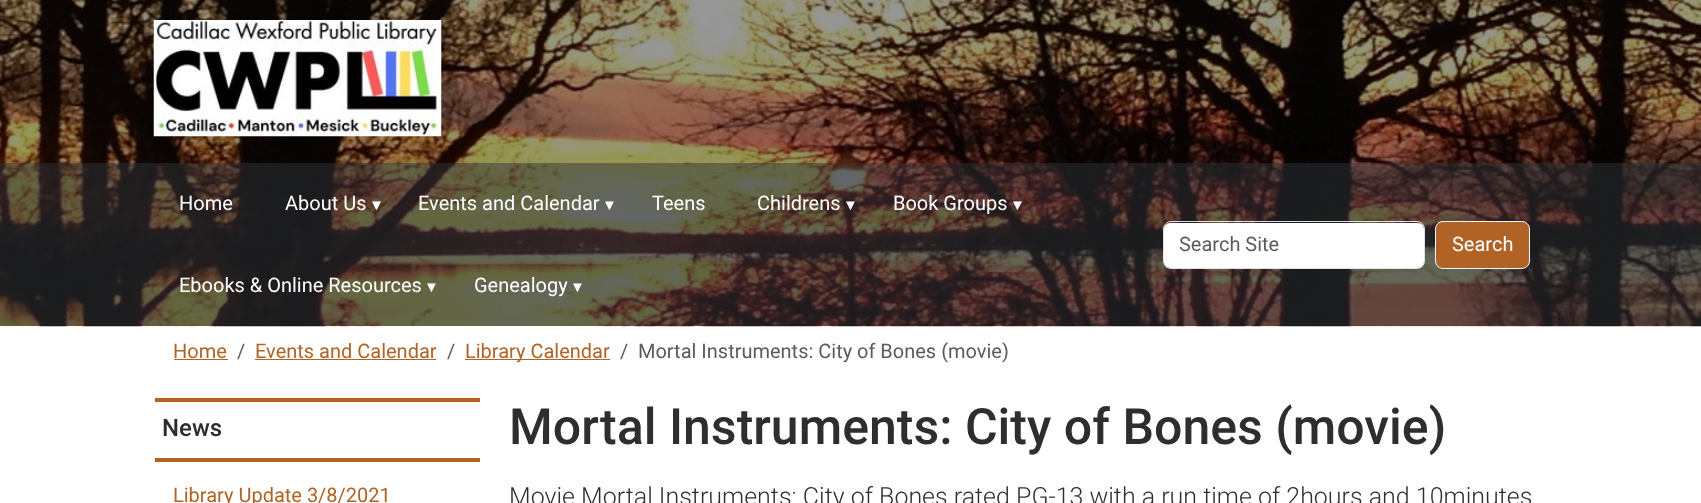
(async () => {
  const canvas = document.querySelector("canvas");
  canvas.width = 1701;
  canvas.height = 503;
  const ctx = canvas.getContext("2d");
  ctx.miterLimit = 4;
  ctx.fontKerning = "normal";
  async function loadImage(src) {
    const img = new Image();
    img.src = src;
    await img.decode();
    return img;
  }

  ctx.fillStyle = "#ffffff";
  ctx.fillRect(0, 0, 1701, 503);
  ctx.drawImage(await loadImage("img/1.png"), 0, 0, 1701, 327);
  ctx.fillStyle = "rgba(0, 0, 0, 0.41)";
  ctx.fillRect(0, 0, 1701, 163);
  ctx.drawImage(await loadImage("img/2.png"), 153, 20, 289, 117);
  ctx.fillStyle = "rgba(33, 37, 41, 0.7)";
  ctx.fillRect(0, 163, 1701, 163);
  ctx.fillStyle = "#ffffff";
  ctx.beginPath();
  ctx.roundRect(1164, 223, 260, 45, 6);
  ctx.fill();
  ctx.beginPath();
  ctx.roundRect(1163.5, 221.5, 261, 47, 7.5);
  ctx.strokeStyle = "#dee2e6";
  ctx.stroke();
  ctx.fillStyle = "#b16225";
  ctx.beginPath();
  ctx.roundRect(1435.5, 221.5, 94, 47, 7.5);
  ctx.fill();
  ctx.strokeStyle = "#f8f9fa";
  ctx.stroke();
  for (const [x, y, w, h, color] of [
    [174, 359, 54, 1, "#b16225"],
    [255, 359, 181, 1, "#b16225"],
    [465, 359, 145, 1, "#b16225"],
    [155, 398, 325, 4, "#b16225"],
    [155, 458, 325, 4, "#b16225"],
  ]) {
    ctx.fillStyle = color;
    ctx.fillRect(x, y, w, h);
  }
  ctx.font = "20px Roboto";
  ctx.fillStyle = "#ffffff";
  ctx.fillText("Home", 179, 210);
  ctx.fillText("About Us", 285, 210);
  ctx.font = "15px Liberation Sans";
  ctx.fillText("▼", 369, 210);
  ctx.font = "20px Roboto";
  ctx.fillText("Events and Calendar", 418, 210);
  ctx.font = "15px Liberation Sans";
  ctx.fillText("▼", 602, 210);
  ctx.font = "20px Roboto";
  ctx.fillText("Teens", 652, 210);
  ctx.fillText("Childrens", 757, 210);
  ctx.font = "15px Liberation Sans";
  ctx.fillText("▼", 843, 210);
  ctx.font = "20px Roboto";
  ctx.fillText("Book Groups", 893, 210);
  ctx.font = "15px Liberation Sans";
  ctx.fillText("▼", 1010, 210);
  ctx.font = "20px Roboto";
  ctx.fillText("Ebooks & Online Resources", 179, 292);
  ctx.font = "15px Liberation Sans";
  ctx.fillText("▼", 424, 292);
  ctx.font = "20px Roboto";
  ctx.fillText("Genealogy", 474, 292);
  ctx.font = "15px Liberation Sans";
  ctx.fillText("▼", 570, 292);
  ctx.font = "20px Roboto";
  ctx.fillStyle = "#595c5f";
  ctx.fillText("Search Site", 1179, 251);
  ctx.fillStyle = "#ffffff";
  ctx.fillText("Search", 1452, 251);
  ctx.fillStyle = "#b16225";
  ctx.fillText("Home", 173, 358);
  ctx.fillStyle = "#595c5f";
  ctx.fillText("/", 237, 358);
  ctx.fillStyle = "#b16225";
  ctx.fillText("Events and Calendar", 255, 358);
  ctx.fillStyle = "#595c5f";
  ctx.fillText("/", 447, 358);
  ctx.fillStyle = "#b16225";
  ctx.fillText("Library Calendar", 465, 358);
  ctx.fillStyle = "#595c5f";
  ctx.fillText("/", 620, 358);
  ctx.fillText("Mortal Instruments: City of Bones (movie)", 638, 358);
  ctx.font = "500 24px Roboto";
  ctx.fillStyle = "#2e2e2e";
  ctx.fillText("News", 162, 436);
  ctx.font = "20px Roboto";
  ctx.fillStyle = "#b16225";
  ctx.fillText("Library Update 3/8/2021", 173, 502);
  ctx.font = "500 50px Roboto";
  ctx.fillStyle = "#2e2e2e";
  ctx.fillText("Mortal Instruments: City of Bones (movie)", 509, 444);
  ctx.font = "300 25px Roboto";
  ctx.fillText("Movie Mortal Instruments: City of Bones rated PG-13 with a run time of 2hours and 10minutes", 509, 505);
})();
